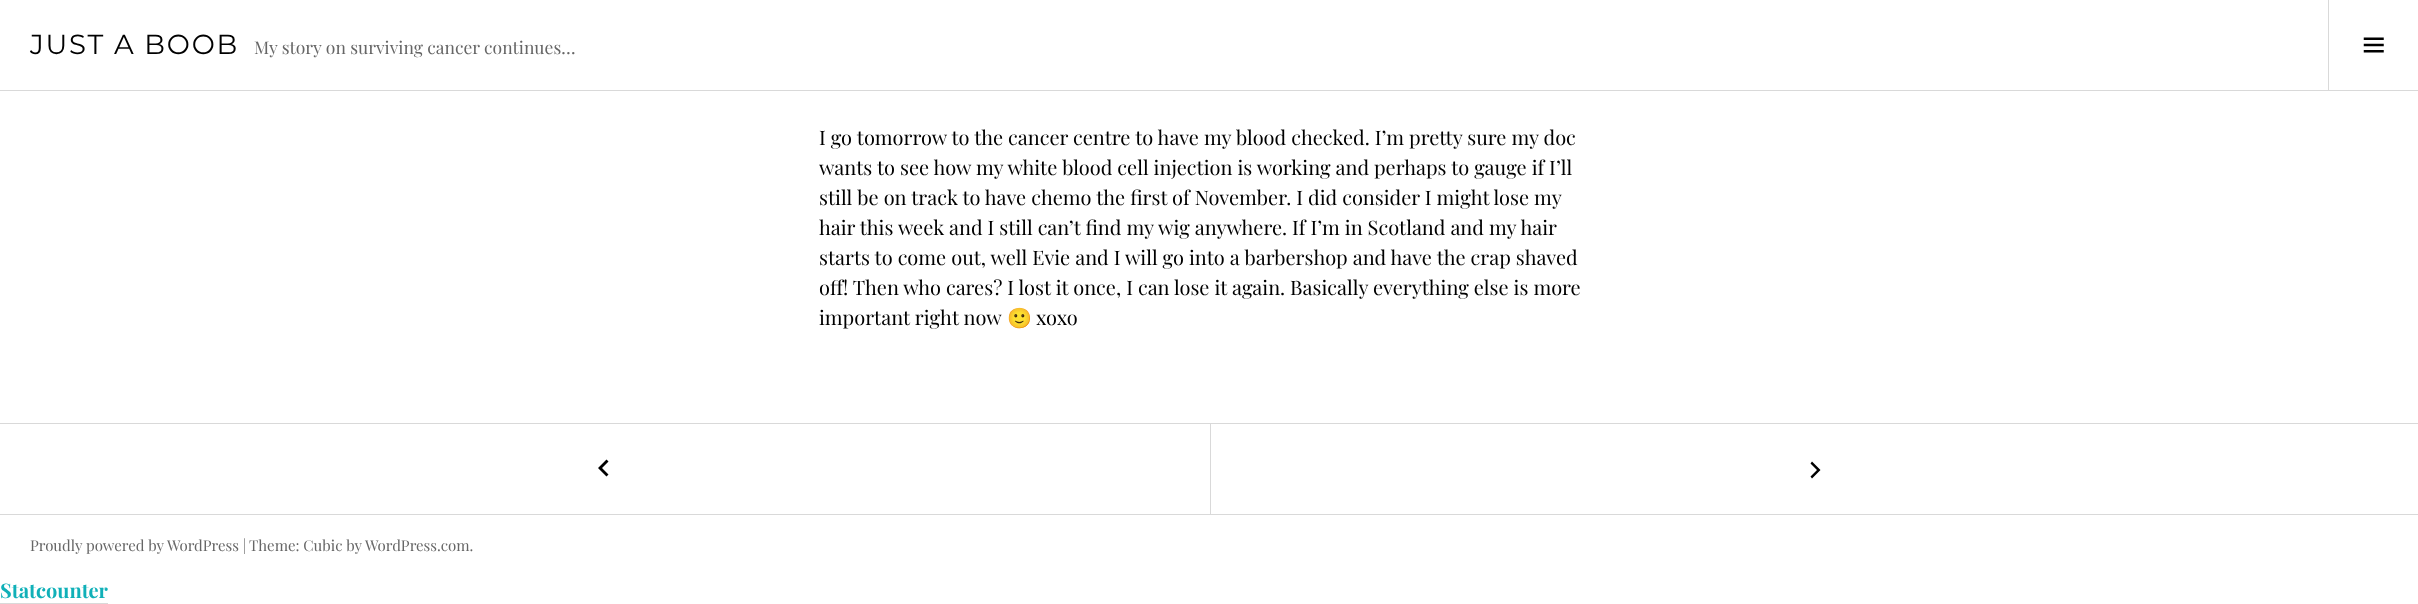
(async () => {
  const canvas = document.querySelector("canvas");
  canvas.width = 2418;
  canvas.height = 604;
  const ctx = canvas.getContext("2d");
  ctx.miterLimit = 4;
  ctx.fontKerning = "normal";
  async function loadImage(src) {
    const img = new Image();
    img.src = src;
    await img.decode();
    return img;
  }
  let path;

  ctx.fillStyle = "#ffffff";
  ctx.fillRect(0, 0, 2418, 604);
  ctx.fillStyle = "#d9d9d9";
  ctx.fillRect(0, 90, 2418, 1);
  ctx.fillRect(2328, 0, 1, 90);
  ctx.drawImage(await loadImage("img/1.png"), 2363, 37, 21, 16);
  ctx.fillRect(0, 423, 2418, 1);
  ctx.fillRect(1210, 424, 1, 90);
  ctx.fillStyle = "#000000";
  path = new Path2D("M608.5 474.5L606.5 476.5L598 468L606.5 459.5L608.5 461.5L602 468Z");
  ctx.fill(path);
  path = new Path2D("M1810.5 463.5L1812 461.5L1820.5 470L1812 478.5L1810.5 476.5L1817 470Z");
  ctx.fill(path);
  ctx.fillStyle = "#d9d9d9";
  ctx.fillRect(0, 514, 2418, 1);
  ctx.fillRect(0, 603, 108, 1);
  ctx.letterSpacing = "1.75px";
  ctx.font = "27.5px Montserrat";
  ctx.fillStyle = "#000000";
  ctx.fillText("JUST A BOOB", 30, 54);
  ctx.letterSpacing = "0px";
  ctx.font = "17.5px Playfair Display";
  ctx.fillStyle = "#666666";
  ctx.fillText("My story on surviving cancer continues…", 254, 54);
  ctx.font = "20px Playfair Display";
  ctx.fillStyle = "#000000";
  for (const [text, x, y] of [
    ["I go tomorrow to the cancer centre to have my blood checked. I’m pretty sure my doc", 819, 145],
    ["wants to see how my white blood cell injection is working and perhaps to gauge if I’ll", 819, 175],
    ["still be on track to have chemo the first of November. I did consider I might lose my", 819, 205],
    ["hair this week and I still can’t find my wig anywhere. If I’m in Scotland and my hair", 819, 235],
    ["starts to come out, well Evie and I will go into a barbershop and have the crap shaved", 819, 265],
    ["off! Then who cares? I lost it once, I can lose it again. Basically everything else is more", 819, 295],
    ["important right now", 819, 325],
  ]) {
    ctx.fillText(text, x, y);
  }
  ctx.font = "20px Noto Color Emoji";
  ctx.fillText("🙂", 1007, 325);
  ctx.font = "20px Playfair Display";
  ctx.fillText("xoxo", 1036, 325);
  ctx.font = "15px Playfair Display";
  ctx.fillStyle = "#666666";
  for (const [text, x, y] of [
    ["Proudly powered by WordPress |", 30, 551],
    ["Theme: Cubic by", 249, 551],
    ["WordPress.com.", 365, 551],
  ]) {
    ctx.fillText(text, x, y);
  }
  ctx.font = "bold 20px Playfair Display";
  ctx.fillStyle = "#10b0b8";
  ctx.fillText("Statcounter", 0, 598);
})();
